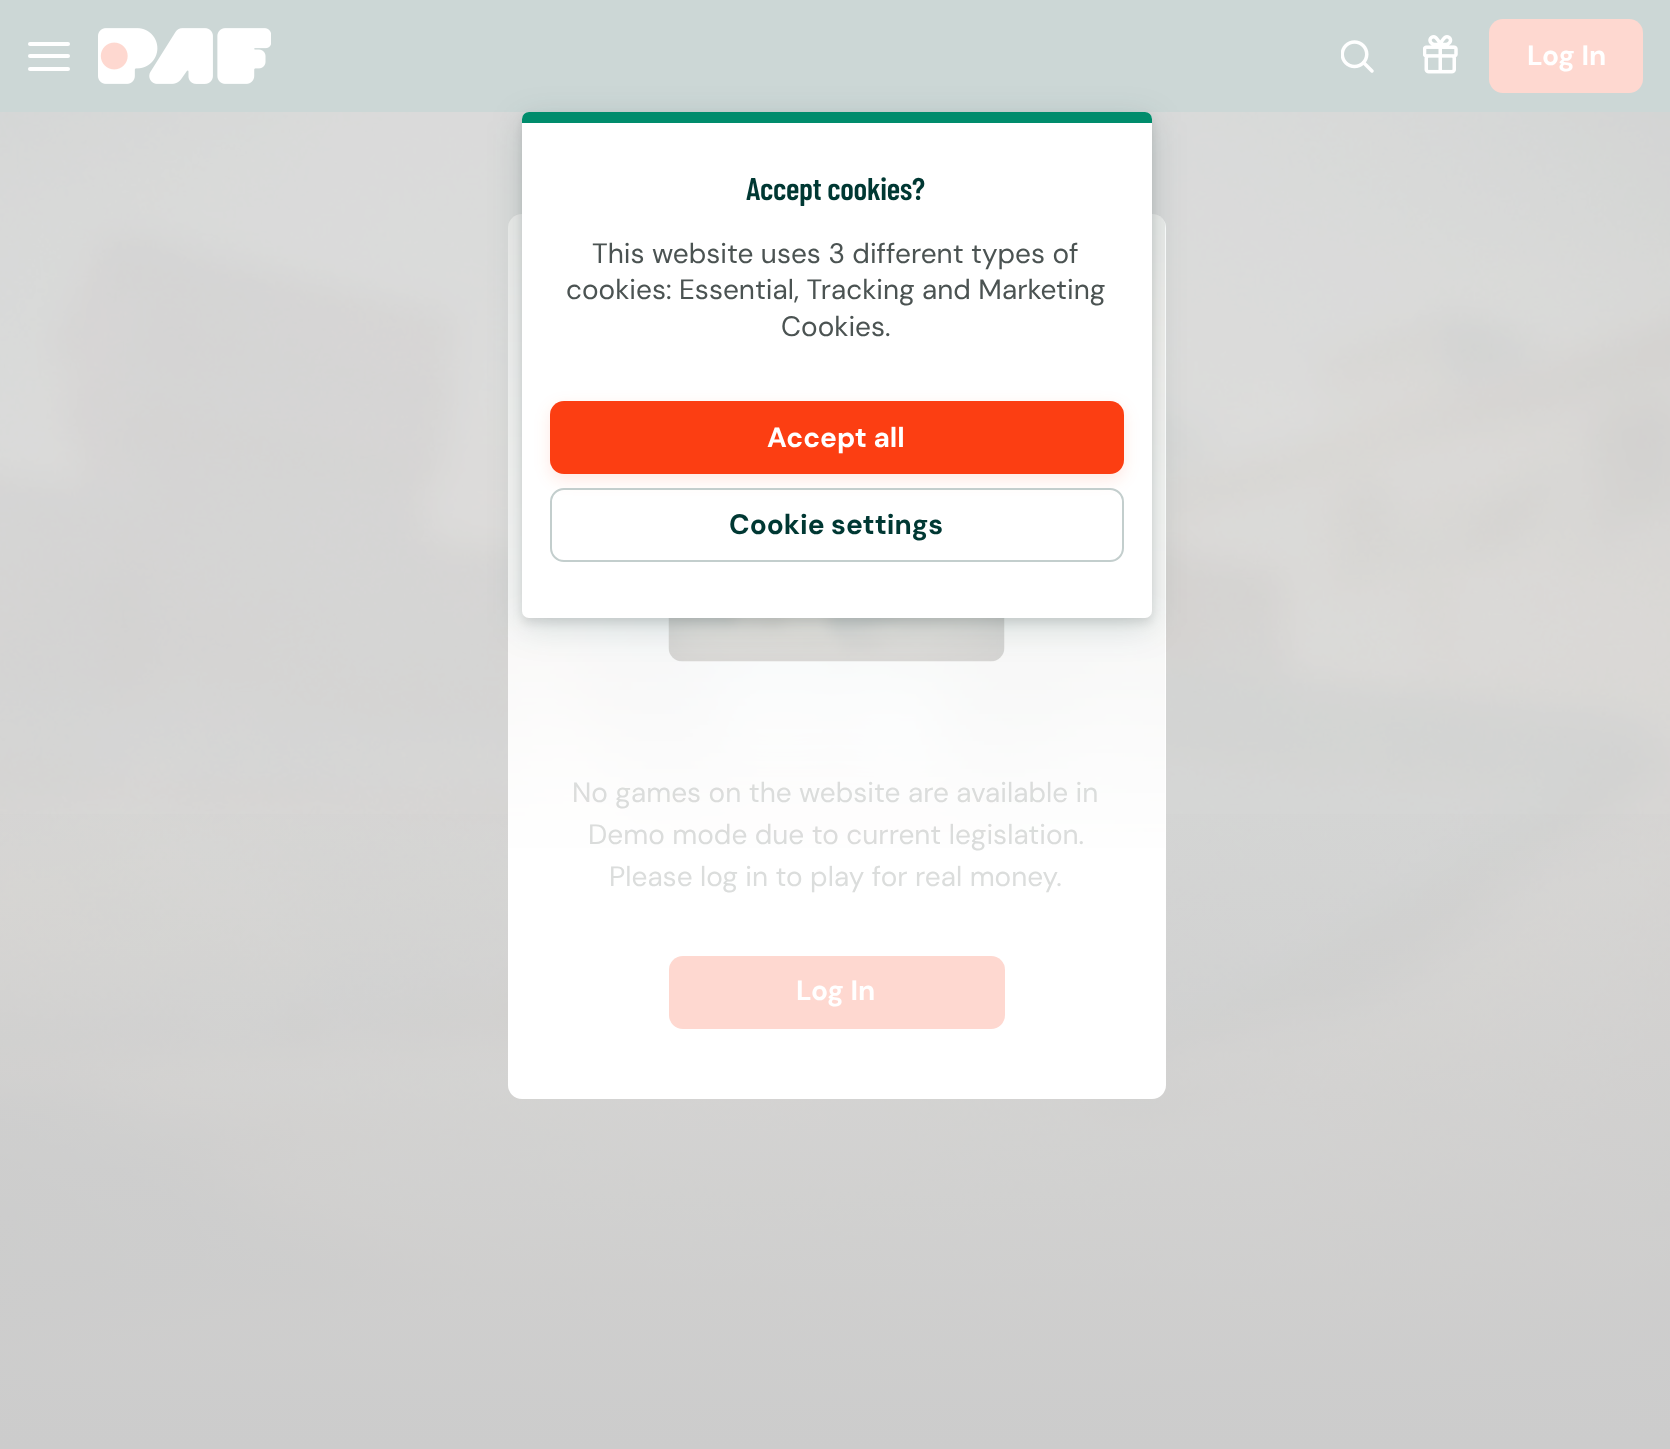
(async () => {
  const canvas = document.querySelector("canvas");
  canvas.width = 1670;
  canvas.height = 1449;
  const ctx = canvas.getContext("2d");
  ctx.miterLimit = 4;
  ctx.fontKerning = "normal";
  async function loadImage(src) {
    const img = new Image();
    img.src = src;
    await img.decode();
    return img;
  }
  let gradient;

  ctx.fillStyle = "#cccccc";
  ctx.fillRect(0, 0, 1670, 1449);
  ctx.fillStyle = "#ccd7d6";
  ctx.fillRect(0, 0, 1670, 112);
  ctx.fillStyle = "#ffffff";
  ctx.beginPath();
  ctx.roundRect(28, 42, 42, 4, 2);
  ctx.fill();
  ctx.beginPath();
  ctx.roundRect(28, 54, 42, 4, 2);
  ctx.fill();
  ctx.beginPath();
  ctx.roundRect(28, 67, 42, 4, 2);
  ctx.fill();
  ctx.drawImage(await loadImage("img/1.png"), 98, 28, 173, 56);
  ctx.drawImage(await loadImage("img/2.png"), 1341, 40, 33, 33);
  ctx.drawImage(await loadImage("img/3.png"), 1423, 35, 35, 39);
  ctx.fillStyle = "#fed8d0";
  ctx.beginPath();
  ctx.roundRect(1489, 19, 154, 74, 14);
  ctx.fill();
  ctx.drawImage(await loadImage("img/4.png"), 0, 112, 1670, 1333);
  gradient = ctx.createLinearGradient(836, 1449, 836, 725);
  gradient.addColorStop(0, "#cccccc");
  gradient.addColorStop(1, "rgba(204, 204, 204, 0)");
  ctx.fillStyle = gradient;
  ctx.fillRect(0, 814, 1670, 631);
  ctx.fillStyle = "#ffffff";
  ctx.beginPath();
  ctx.roundRect(508, 214, 658, 885, 14);
  ctx.fill();
  ctx.fillStyle = "#fed8d0";
  ctx.beginPath();
  ctx.roundRect(669, 956, 336, 73, 14);
  ctx.fill();
  ctx.font = "bold 28px DM Sans";
  ctx.fillStyle = "#ffffff";
  ctx.fillText("Log In", 1527, 65);
  ctx.font = "28px DM Sans";
  ctx.fillStyle = "#dbdddc";
  ctx.fillText("No games on the website are available in", 572, 802);
  ctx.fillText("Demo mode due to current legislation.", 588, 844);
  ctx.drawImage(await loadImage("img/5.png"), 508, 214, 658, 634);
  ctx.drawImage(await loadImage("img/6.png"), 668, 618, 337, 44);
  ctx.fillText("Please log in to play for real money.", 609, 886);
  ctx.font = "bold 28px DM Sans";
  ctx.fillStyle = "#ffffff";
  ctx.fillText("Log In", 796, 1000);
  ctx.fillStyle = "rgba(0, 0, 0, 0.1)";
  ctx.filter = "blur(5px)";
  ctx.beginPath();
  ctx.roundRect(522, 117, 630, 506, 7);
  ctx.fill();
  ctx.filter = "none";
  ctx.fillStyle = "rgba(0, 56, 51, 0.15)";
  ctx.filter = "blur(17.5px)";
  ctx.beginPath();
  ctx.roundRect(522, 121, 630, 506, 7);
  ctx.fill();
  ctx.filter = "none";
  ctx.fillStyle = "#ffffff";
  ctx.beginPath();
  ctx.roundRect(522, 112, 630, 506, 7);
  ctx.fill();
  ctx.fillStyle = "#008c6c";
  ctx.beginPath();
  ctx.roundRect(522, 112, 630, 11, [7, 7, 0, 0]);
  ctx.fill();
  ctx.letterSpacing = "-0.3px";
  ctx.font = "600 31.5px Barlow Condensed";
  ctx.fillStyle = "#003833";
  ctx.fillText("Accept cookies?", 746, 200);
  ctx.letterSpacing = "0px";
  ctx.font = "28px DM Sans";
  ctx.fillStyle = "#4b5352";
  for (const [text, x, y] of [
    ["This website uses 3 different types of", 592, 263],
    ["cookies: Essential, Tracking and Marketing", 566, 299],
    ["Cookies.", 781, 336],
  ]) {
    ctx.fillText(text, x, y);
  }
  ctx.fillStyle = "rgba(252, 62, 18, 0.12)";
  ctx.filter = "blur(8px)";
  ctx.beginPath();
  ctx.roundRect(550, 406, 574, 74, 14);
  ctx.fill();
  ctx.filter = "none";
  ctx.fillStyle = "#fc3e12";
  ctx.beginPath();
  ctx.roundRect(550, 401, 574, 73, 14);
  ctx.fill();
  ctx.font = "bold 28px DM Sans";
  ctx.fillStyle = "#ffffff";
  ctx.fillText("Accept all", 767, 447);
  ctx.beginPath();
  ctx.roundRect(551, 489, 572, 72, 13);
  ctx.strokeStyle = "#c3cecd";
  ctx.lineWidth = 2;
  ctx.stroke();
  ctx.fillStyle = "#003833";
  ctx.fillText("Cookie settings", 729, 534);
})();
